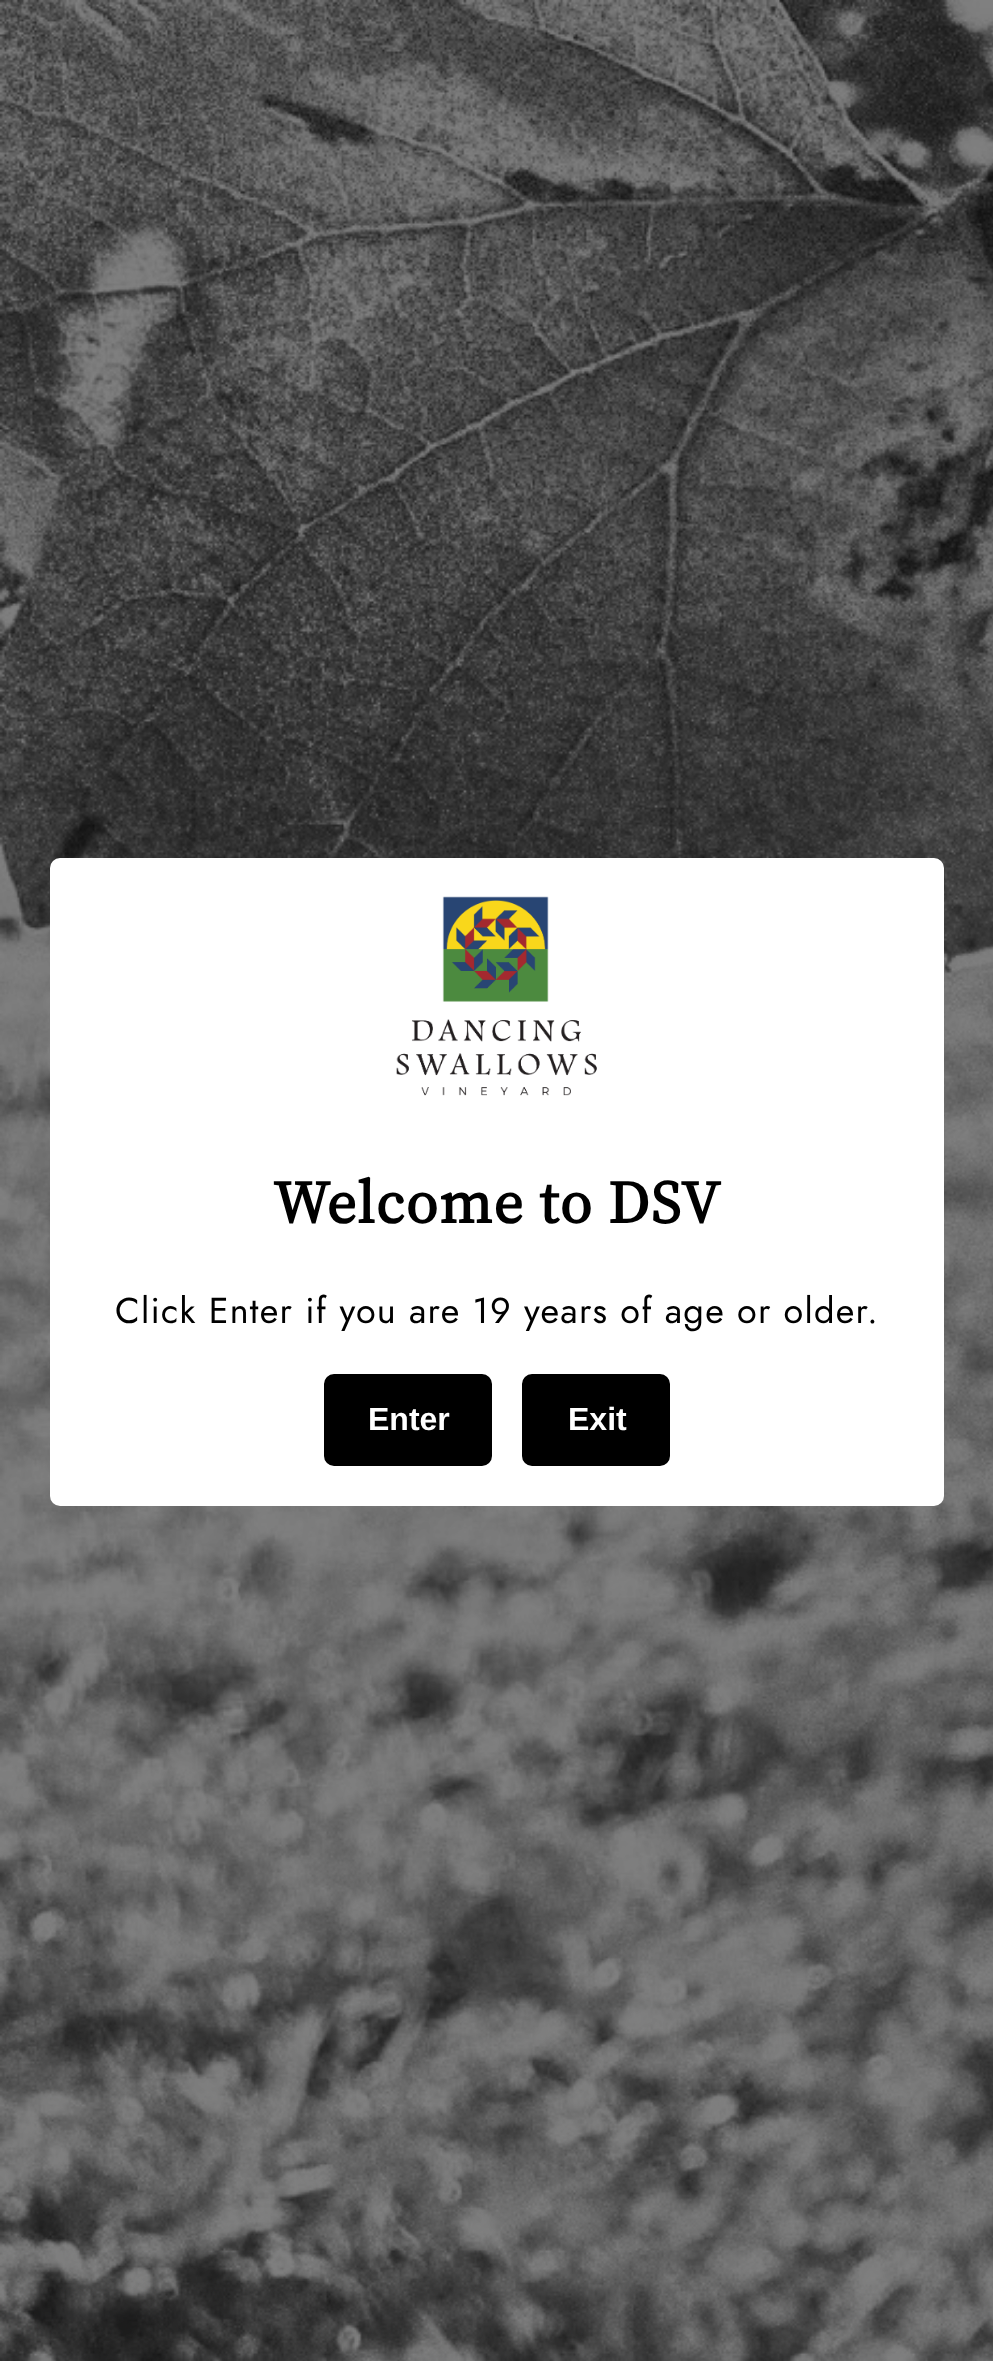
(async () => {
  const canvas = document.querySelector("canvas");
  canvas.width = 993;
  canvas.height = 2361;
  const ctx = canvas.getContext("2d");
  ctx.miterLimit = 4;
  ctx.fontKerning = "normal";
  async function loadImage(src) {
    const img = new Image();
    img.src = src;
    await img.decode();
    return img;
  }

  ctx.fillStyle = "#ffffff";
  ctx.fillRect(0, 0, 993, 2361);
  ctx.drawImage(await loadImage("img/1.png"), 0, 0, 993, 2361);
  ctx.beginPath();
  ctx.roundRect(50, 858, 894, 648, 10);
  ctx.fill();
  ctx.drawImage(await loadImage("img/2.png"), 396, 896, 201, 200);
  ctx.fillStyle = "#000000";
  ctx.beginPath();
  ctx.roundRect(326, 1376, 164, 88, 8);
  ctx.fill();
  ctx.strokeStyle = "#000000";
  ctx.lineWidth = 4;
  ctx.stroke();
  ctx.beginPath();
  ctx.roundRect(524, 1376, 144, 88, 8);
  ctx.fill();
  ctx.stroke();
  ctx.letterSpacing = "1.25px";
  ctx.font = "bold 60px 'Source Serif 4'";
  ctx.fillText("Welcome to DSV", 273, 1223);
  ctx.font = "36px Jost";
  ctx.fillText("Click Enter if you are 19 years of age or older.", 115, 1323);
  ctx.letterSpacing = "0px";
  ctx.font = "bold 32px Liberation Sans";
  ctx.fillStyle = "#ffffff";
  ctx.fillText("Enter", 368, 1430);
  ctx.fillText("Exit", 568, 1430);
})();
